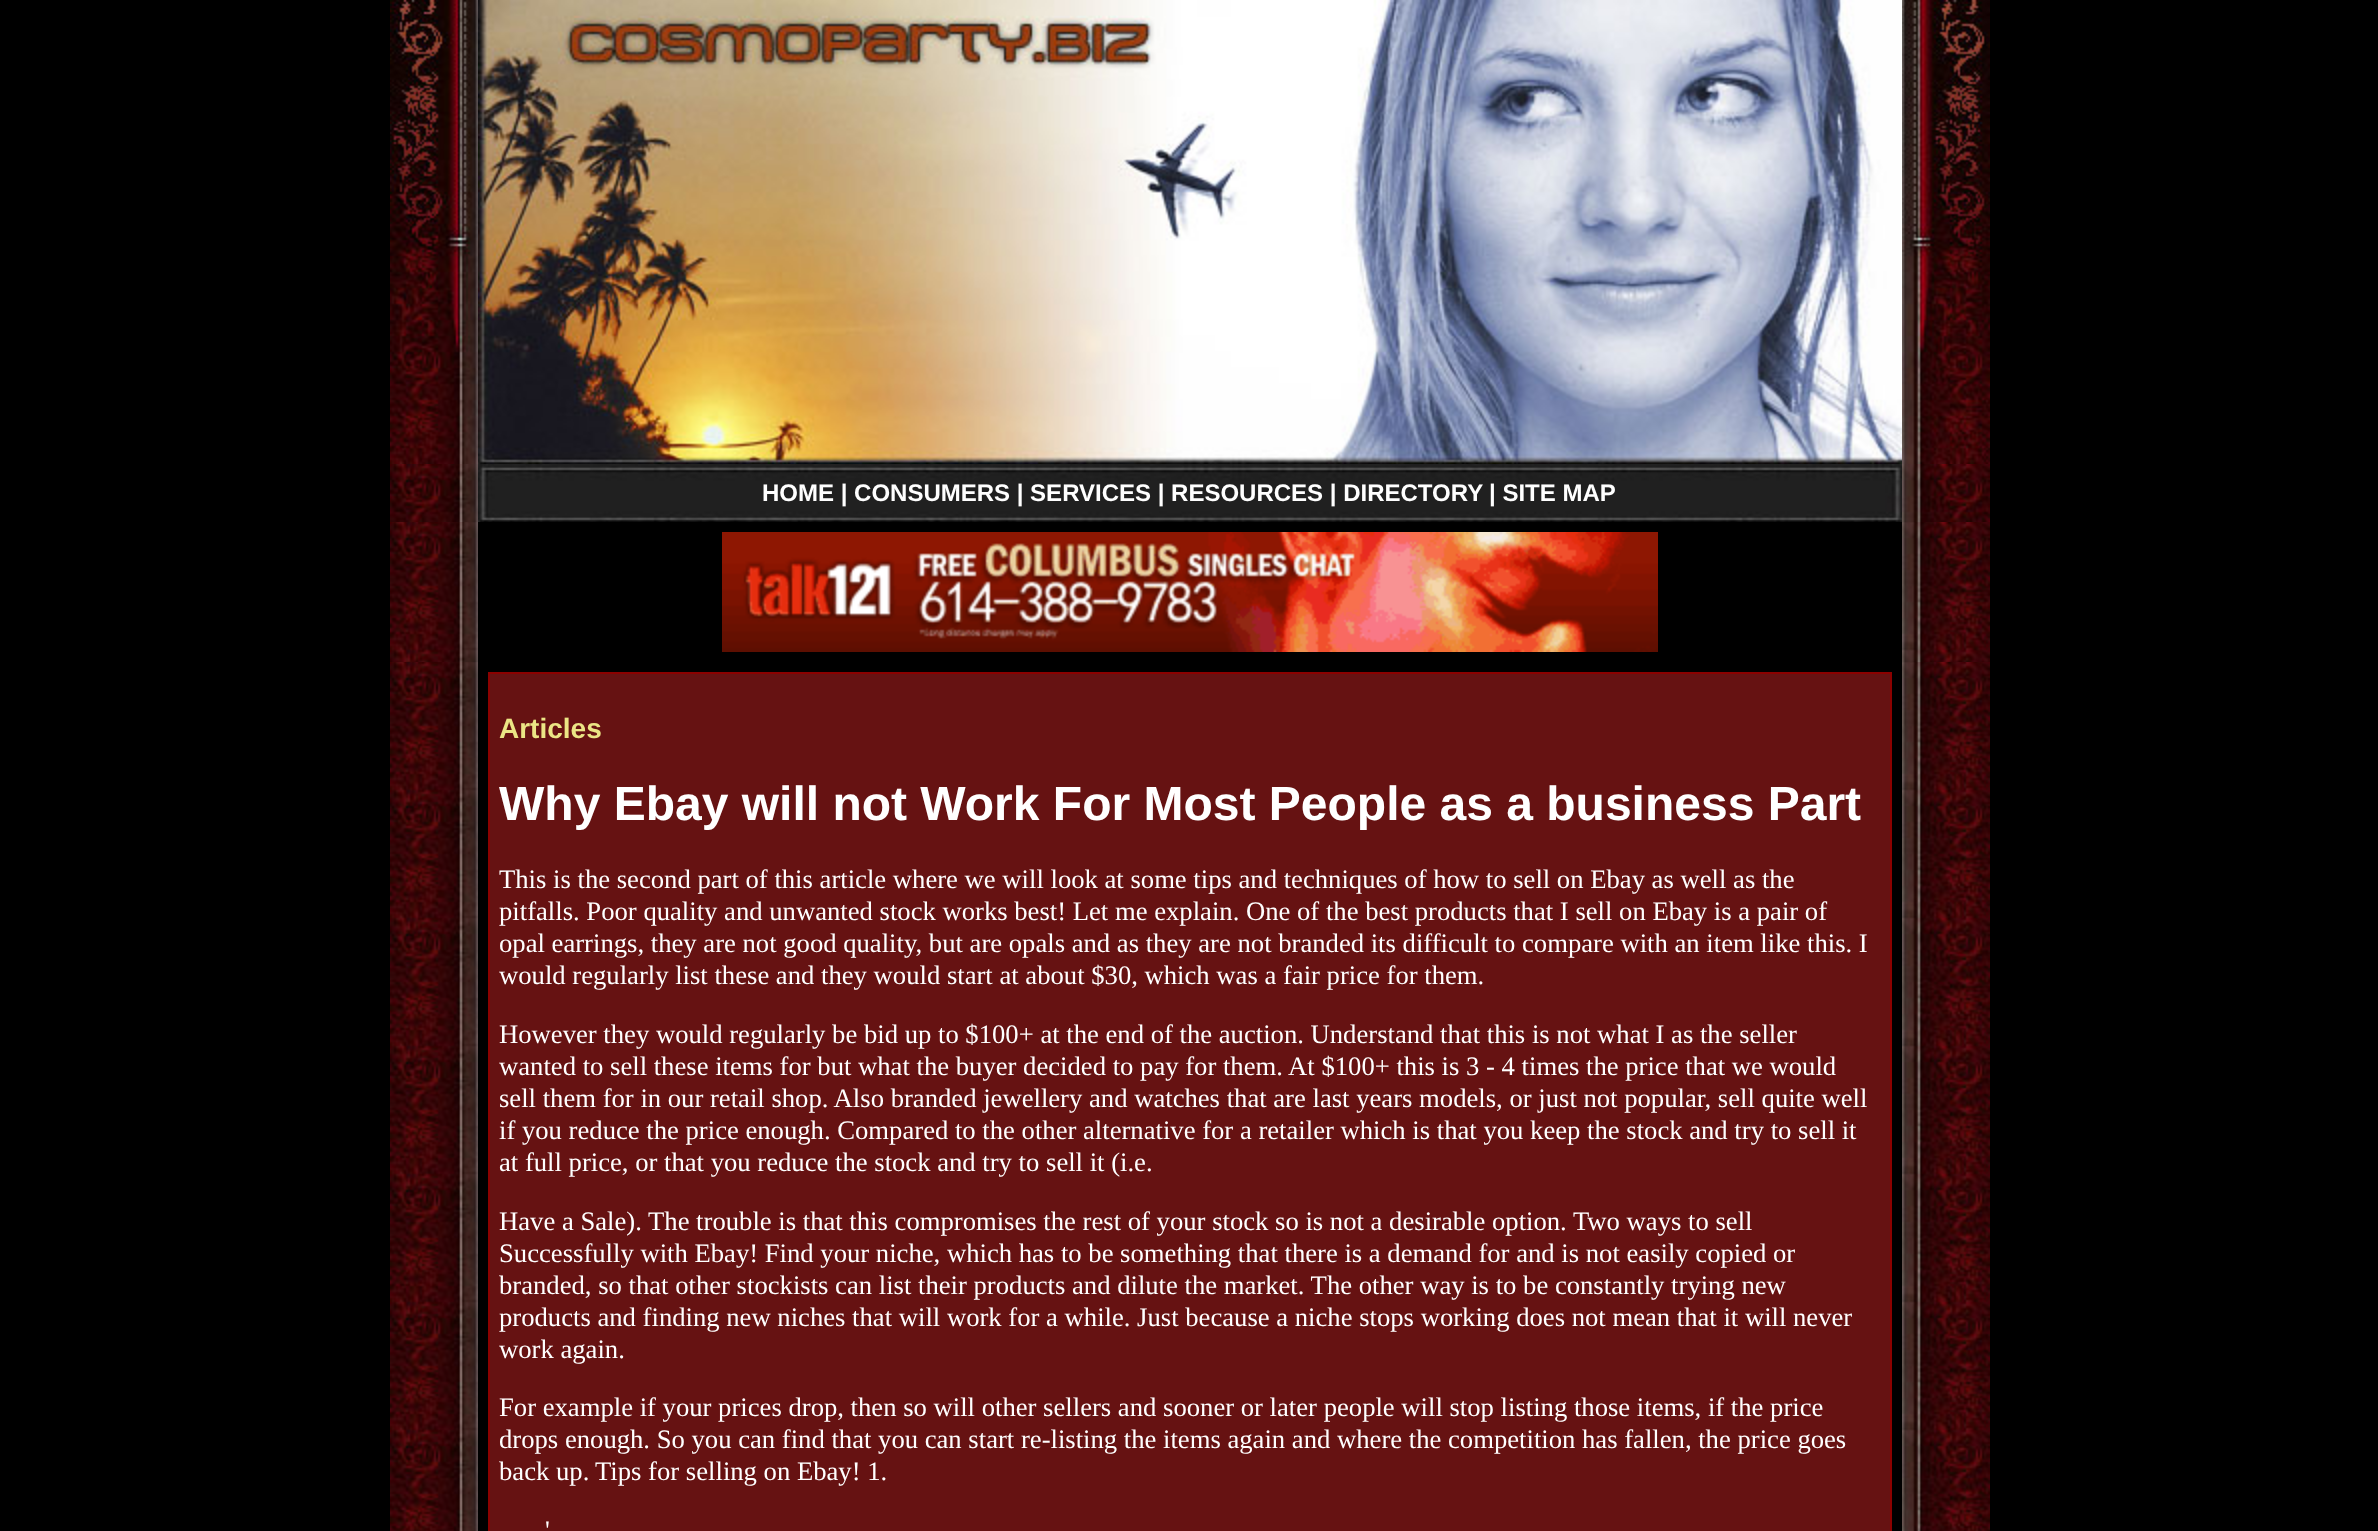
(async () => {
  const canvas = document.querySelector("canvas");
  canvas.width = 2378;
  canvas.height = 1531;
  const ctx = canvas.getContext("2d");
  ctx.miterLimit = 4;
  ctx.fontKerning = "normal";
  async function loadImage(src) {
    const img = new Image();
    img.src = src;
    await img.decode();
    return img;
  }

  ctx.fillStyle = "#000000";
  ctx.fillRect(0, 0, 2378, 1531);
  ctx.drawImage(await loadImage("img/1.png"), 390, 0, 88, 464);
  ctx.drawImage(await loadImage("img/2.png"), 478, 0, 1424, 464);
  ctx.drawImage(await loadImage("img/3.png"), 1902, 0, 88, 464);
  ctx.drawImage(await loadImage("img/4.png"), 390, 464, 88, 58);
  ctx.drawImage(await loadImage("img/5.png"), 478, 464, 1424, 58);
  ctx.drawImage(await loadImage("img/6.png"), 1902, 464, 88, 58);
  ctx.drawImage(await loadImage("img/7.png"), 390, 522, 88, 140);
  ctx.drawImage(await loadImage("img/8.png"), 722, 532, 936, 120);
  ctx.drawImage(await loadImage("img/9.png"), 1902, 522, 88, 140);
  ctx.drawImage(await loadImage("img/10.png"), 390, 662, 88, 869);
  for (const [x, y, w, h, color] of [
    [488, 672, 1404, 2, "#8b0100"],
    [1890, 672, 2, 859, "#8b0100"],
    [488, 672, 2, 859, "#8b0100"],
    [490, 674, 1400, 857, "#661212"],
  ]) {
    ctx.fillStyle = color;
    ctx.fillRect(x, y, w, h);
  }
  ctx.drawImage(await loadImage("img/11.png"), 1902, 662, 88, 869);
  ctx.font = "bold 24px Liberation Sans";
  ctx.fillStyle = "#ffffff";
  ctx.fillText("HOME | CONSUMERS | SERVICES | RESOURCES | DIRECTORY", 762, 501);
  ctx.fillText("| SITE MAP", 1489, 501);
  ctx.font = "bold 28px Liberation Sans";
  ctx.fillStyle = "#ebe585";
  ctx.fillText("Articles", 499, 738);
  ctx.font = "bold 48px Liberation Sans";
  ctx.fillStyle = "#ffffff";
  ctx.fillText("Why Ebay will not Work For Most People as a business Part", 499, 820);
  ctx.font = "26.67px Liberation Serif";
  for (const [text, x, y] of [
    ["This is the second part of this article where we will look at some tips and techniques of how to sell on Ebay as well as the", 499, 888],
    ["pitfalls. Poor quality and unwanted stock works best! Let me explain. One of the best products that I sell on Ebay is a pair of", 499, 920],
    ["opal earrings, they are not good quality, but are opals and as they are not branded its difficult to compare with an item like this. I", 499, 952],
    ["would regularly list these and they would start at about $30, which was a fair price for them.", 499, 984],
    ["However they would regularly be bid up to $100+ at the end of the auction. Understand that this is not what I as the seller", 499, 1043],
    ["wanted to sell these items for but what the buyer decided to pay for them. At $100+ this is 3 - 4 times the price that we would", 499, 1075],
    ["sell them for in our retail shop. Also branded jewellery and watches that are last years models, or just not popular, sell quite well", 499, 1107],
    ["if you reduce the price enough. Compared to the other alternative for a retailer which is that you keep the stock and try to sell it", 499, 1139],
    ["at full price, or that you reduce the stock and try to sell it (i.e.", 499, 1171],
    ["Have a Sale). The trouble is that this compromises the rest of your stock so is not a desirable option. Two ways to sell", 499, 1230],
    ["Successfully with Ebay! Find your niche, which has to be something that there is a demand for and is not easily copied or", 499, 1262],
    ["branded, so that other stockists can list their products and dilute the market. The other way is to be constantly trying new", 499, 1294],
    ["products and finding new niches that will work for a while. Just because a niche stops working does not mean that it will never", 499, 1326],
    ["work again.", 499, 1358],
    ["For example if your prices drop, then so will other sellers and sooner or later people will stop listing those items, if the price", 499, 1416],
    ["drops enough. So you can find that you can start re-listing the items again and where the competition has fallen, the price goes", 499, 1448],
    ["back up.", 499, 1480],
    ["Tips for selling on Ebay! 1.", 595, 1480],
    ["'", 545, 1539],
  ]) {
    ctx.fillText(text, x, y);
  }
})();
